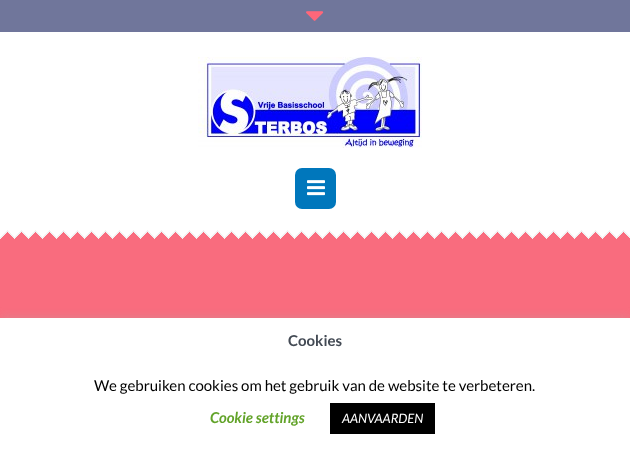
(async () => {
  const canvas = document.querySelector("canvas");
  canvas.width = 630;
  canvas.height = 451;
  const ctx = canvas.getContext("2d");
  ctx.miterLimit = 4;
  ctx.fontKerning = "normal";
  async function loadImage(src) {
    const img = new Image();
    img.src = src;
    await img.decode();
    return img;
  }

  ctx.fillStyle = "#ffffff";
  ctx.fillRect(0, 0, 630, 451);
  ctx.fillStyle = "#70769b";
  ctx.fillRect(0, 0, 630, 32);
  ctx.drawImage(await loadImage("img/1.png"), 306, 11, 18, 10);
  ctx.drawImage(await loadImage("img/2.png"), 198, 57, 224, 91);
  ctx.fillStyle = "#0077bc";
  ctx.beginPath();
  ctx.roundRect(295, 168, 41, 41, 7);
  ctx.fill();
  ctx.drawImage(await loadImage("img/3.png"), 307, 180, 18, 16);
  ctx.fillStyle = "#f96c7e";
  ctx.fillRect(0, 232, 630, 86);
  ctx.drawImage(await loadImage("img/6.png"), 7, 230, 623, 8);
  ctx.drawImage(await loadImage("img/7.png"), 0, 230, 623, 9);
  ctx.drawImage(await loadImage("img/4.png"), 7, 229, 623, 7);
  ctx.drawImage(await loadImage("img/5.png"), 0, 229, 623, 8);
  ctx.fillStyle = "rgba(172, 171, 171, 0.3)";
  ctx.filter = "blur(5px)";
  ctx.beginPath();
  ctx.rect(0, 317, 630, 133);
  ctx.fill();
  ctx.filter = "none";
  ctx.fillStyle = "#ffffff";
  ctx.fillRect(0, 318, 630, 133);
  ctx.fillStyle = "#000000";
  ctx.fillRect(330, 403, 105, 31);
  ctx.font = "bold 15px Lato";
  ctx.fillStyle = "#434a54";
  ctx.fillText("Cookies", 288, 346);
  ctx.font = "15px Lato";
  ctx.fillStyle = "#000000";
  ctx.fillText("We gebruiken cookies om het gebruik van de website te verbeteren.", 94, 391);
  ctx.font = "italic bold 15px Lato";
  ctx.fillStyle = "#62a329";
  ctx.fillText("Cookie settings", 210, 423);
  ctx.font = "italic 13px Lato";
  ctx.fillStyle = "#ffffff";
  ctx.fillText("AANVAARDEN", 342, 423);
})();
